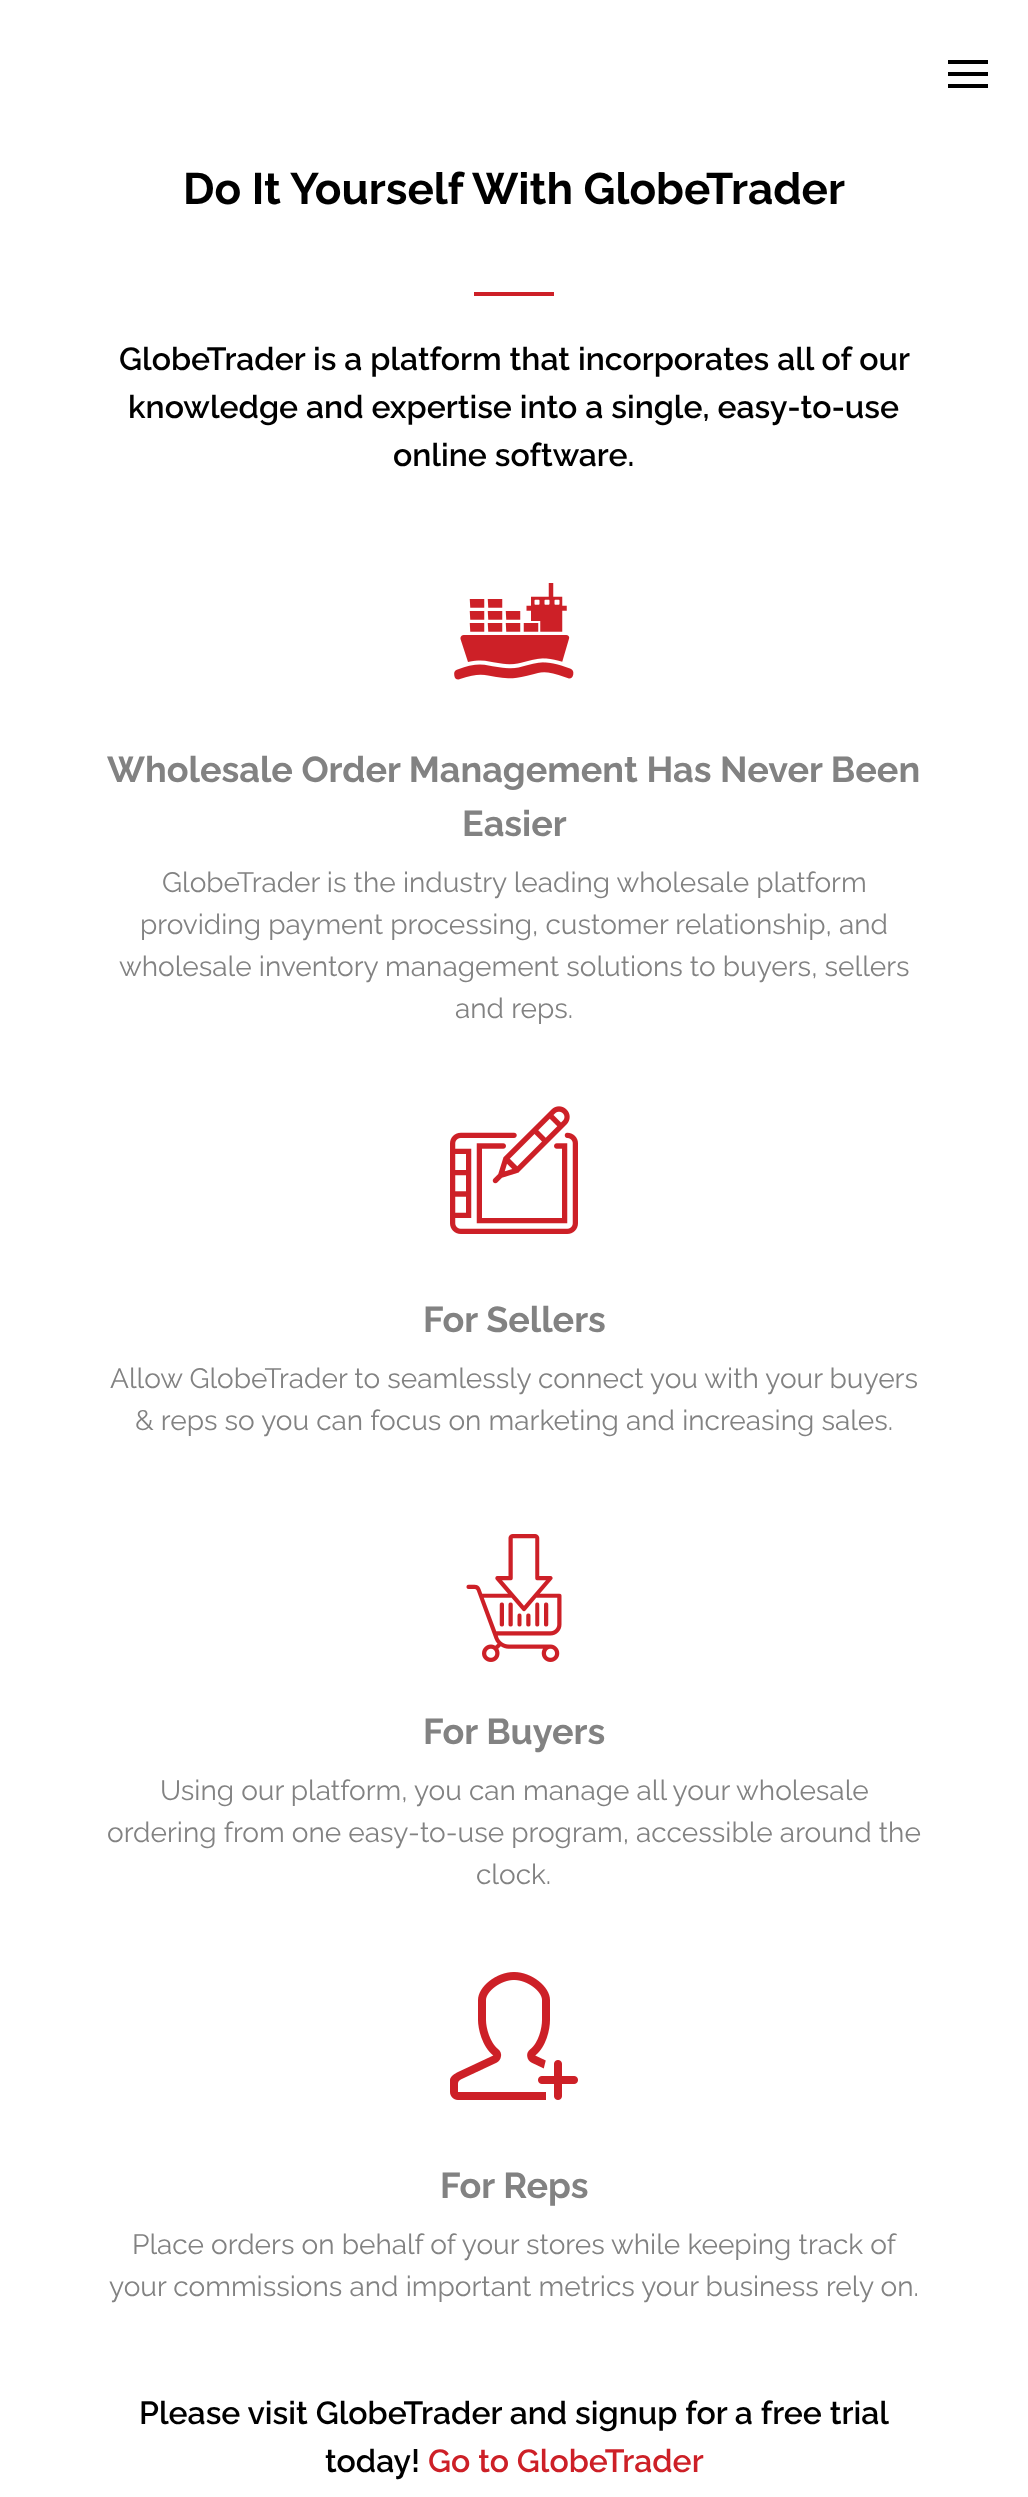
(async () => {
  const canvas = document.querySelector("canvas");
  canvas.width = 1028;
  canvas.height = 2497;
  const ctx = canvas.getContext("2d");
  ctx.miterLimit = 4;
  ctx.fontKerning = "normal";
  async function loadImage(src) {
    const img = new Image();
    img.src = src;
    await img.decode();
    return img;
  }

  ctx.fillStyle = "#ffffff";
  ctx.fillRect(0, 0, 1028, 2497);
  for (const [x, y, w, h, color] of [
    [948, 60, 40, 4, "#000000"],
    [948, 72, 40, 4, "#000000"],
    [948, 84, 40, 4, "#000000"],
    [474, 292, 80, 4, "#cd2027"],
  ]) {
    ctx.fillStyle = color;
    ctx.fillRect(x, y, w, h);
  }
  ctx.drawImage(await loadImage("img/1.png"), 454, 583, 120, 97);
  ctx.drawImage(await loadImage("img/2.png"), 450, 1106, 128, 128);
  ctx.drawImage(await loadImage("img/3.png"), 466, 1534, 96, 128);
  ctx.drawImage(await loadImage("img/4.png"), 450, 1972, 128, 128);
  ctx.font = "bold 44px Raleway";
  ctx.fillStyle = "#000000";
  ctx.fillText("Do It Yourself With GlobeTrader", 183, 204);
  ctx.font = "600 32px Raleway";
  for (const [text, x, y] of [
    ["GlobeTrader is a platform that incorporates all of our", 119, 370],
    ["knowledge and expertise into a single, easy-to-use", 128, 418],
    ["online software.", 393, 466],
  ]) {
    ctx.fillText(text, x, y);
  }
  ctx.font = "bold 36px Raleway";
  ctx.fillStyle = "#828282";
  ctx.fillText("Wholesale Order Management Has Never Been", 107, 782);
  ctx.fillText("Easier", 462, 836);
  ctx.font = "28px Raleway";
  for (const [text, x, y] of [
    ["GlobeTrader is the industry leading wholesale platform", 162, 892],
    ["providing payment processing, customer relationship, and", 140, 934],
    ["wholesale inventory management solutions to buyers, sellers", 119, 976],
    ["and reps.", 455, 1018],
  ]) {
    ctx.fillText(text, x, y);
  }
  ctx.font = "bold 36px Raleway";
  ctx.fillText("For Sellers", 423, 1332);
  ctx.font = "28px Raleway";
  ctx.fillText("Allow GlobeTrader to seamlessly connect you with your buyers", 110, 1388);
  ctx.fillText("& reps so you can focus on marketing and increasing sales.", 135, 1430);
  ctx.font = "bold 36px Raleway";
  ctx.fillText("For Buyers", 423, 1744);
  ctx.font = "28px Raleway";
  for (const [text, x, y] of [
    ["Using our platform, you can manage all your wholesale", 160, 1800],
    ["ordering from one easy-to-use program, accessible around the", 107, 1842],
    ["clock.", 476, 1884],
  ]) {
    ctx.fillText(text, x, y);
  }
  ctx.font = "bold 36px Raleway";
  ctx.fillText("For Reps", 440, 2198);
  ctx.font = "28px Raleway";
  ctx.fillText("Place orders on behalf of your stores while keeping track of", 132, 2254);
  ctx.fillText("your commissions and important metrics your business rely on.", 109, 2296);
  ctx.font = "600 32px Raleway";
  ctx.fillStyle = "#000000";
  ctx.fillText("Please visit GlobeTrader and signup for a free trial", 139, 2424);
  ctx.fillText("today!", 325, 2472);
  ctx.fillStyle = "#cd2027";
  ctx.fillText("Go to GlobeTrader", 428, 2472);
})();
